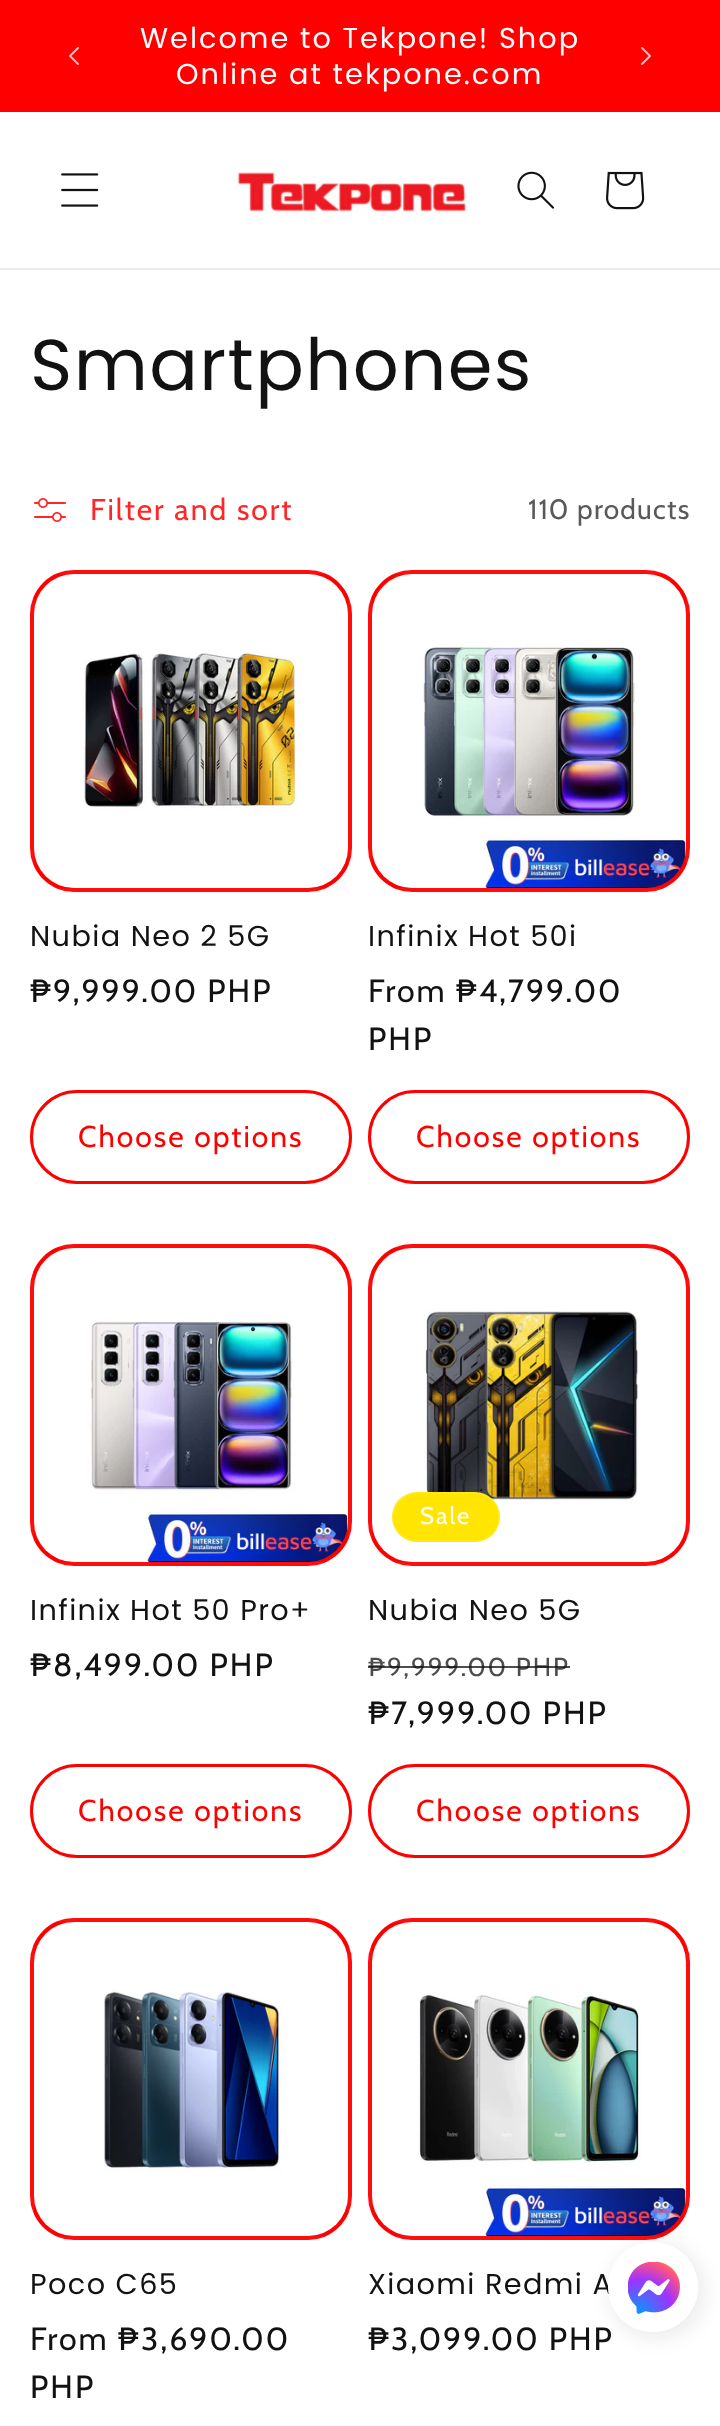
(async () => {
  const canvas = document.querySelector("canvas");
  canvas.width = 720;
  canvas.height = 2426;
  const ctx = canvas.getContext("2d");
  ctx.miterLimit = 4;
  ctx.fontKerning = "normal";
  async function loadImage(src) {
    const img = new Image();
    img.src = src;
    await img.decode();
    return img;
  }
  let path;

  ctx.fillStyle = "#ffffff";
  ctx.fillRect(0, 0, 720, 2426);
  ctx.fillStyle = "#ff0000";
  ctx.fillRect(0, 0, 720, 112);
  ctx.drawImage(await loadImage("img/1.png"), 69, 47, 10, 18);
  ctx.drawImage(await loadImage("img/2.png"), 641, 47, 10, 18);
  ctx.fillStyle = "#ececec";
  ctx.fillRect(0, 268, 720, 2);
  ctx.drawImage(await loadImage("img/3.png"), 61, 173, 38, 34);
  ctx.drawImage(await loadImage("img/4.png"), 234, 170, 234, 47);
  ctx.drawImage(await loadImage("img/5.png"), 517, 171, 37, 38);
  ctx.drawImage(await loadImage("img/6.png"), 606, 171, 39, 39);
  ctx.drawImage(await loadImage("img/7.png"), 34, 498, 32, 24);
  ctx.fillStyle = "#ff0000";
  ctx.beginPath();
  ctx.roundRect(30, 570, 322, 322, 44);
  ctx.fill();
  ctx.strokeStyle = "rgba(255, 255, 255, 0.05)";
  ctx.lineWidth = 4;
  ctx.strokeRect(32, 572, 318, 318);
  ctx.drawImage(await loadImage("img/8.png"), 34, 574, 314, 314);
  ctx.beginPath();
  ctx.roundRect(31.5, 1091.5, 319, 91, 45.5);
  ctx.strokeStyle = "#ff0000";
  ctx.lineWidth = 3;
  ctx.stroke();
  ctx.beginPath();
  ctx.roundRect(368, 570, 322, 322, 44);
  ctx.fill();
  ctx.strokeStyle = "rgba(255, 255, 255, 0.05)";
  ctx.lineWidth = 4;
  ctx.strokeRect(370, 572, 318, 318);
  ctx.drawImage(await loadImage("img/9.png"), 372, 574, 314, 314);
  ctx.beginPath();
  ctx.roundRect(369.5, 1091.5, 319, 91, 45.5);
  ctx.strokeStyle = "#ff0000";
  ctx.lineWidth = 3;
  ctx.stroke();
  ctx.beginPath();
  ctx.roundRect(30, 1244, 322, 322, 44);
  ctx.fill();
  ctx.strokeStyle = "rgba(255, 255, 255, 0.05)";
  ctx.lineWidth = 4;
  ctx.strokeRect(32, 1246, 318, 318);
  ctx.drawImage(await loadImage("img/10.png"), 34, 1248, 314, 314);
  ctx.beginPath();
  ctx.roundRect(31.5, 1765.5, 319, 91, 45.5);
  ctx.strokeStyle = "#ff0000";
  ctx.lineWidth = 3;
  ctx.stroke();
  ctx.beginPath();
  ctx.roundRect(368, 1244, 322, 322, 44);
  ctx.fill();
  ctx.strokeStyle = "rgba(255, 255, 255, 0.05)";
  ctx.lineWidth = 4;
  ctx.strokeRect(370, 1246, 318, 318);
  ctx.drawImage(await loadImage("img/11.png"), 372, 1248, 314, 314);
  ctx.fillStyle = "#ffe500";
  ctx.beginPath();
  ctx.roundRect(392, 1492, 108, 50, 25);
  ctx.fill();
  ctx.beginPath();
  ctx.roundRect(393, 1493, 106, 48, 24);
  ctx.strokeStyle = "rgba(255, 255, 255, 0.1)";
  ctx.lineWidth = 2;
  ctx.stroke();
  ctx.beginPath();
  ctx.roundRect(369.5, 1765.5, 319, 91, 45.5);
  ctx.strokeStyle = "#ff0000";
  ctx.lineWidth = 3;
  ctx.stroke();
  ctx.fillStyle = "#ff0000";
  ctx.beginPath();
  ctx.roundRect(30, 1918, 322, 322, 44);
  ctx.fill();
  ctx.strokeStyle = "rgba(255, 255, 255, 0.05)";
  ctx.lineWidth = 4;
  ctx.strokeRect(32, 1920, 318, 318);
  ctx.drawImage(await loadImage("img/12.png"), 34, 1922, 314, 314);
  ctx.beginPath();
  ctx.roundRect(368, 1918, 322, 322, 44);
  ctx.fill();
  ctx.strokeRect(370, 1920, 318, 318);
  ctx.drawImage(await loadImage("img/13.png"), 372, 1922, 314, 314);
  ctx.save();
  path = new Path2D("M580 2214H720V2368H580ZM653 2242C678 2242 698 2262 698 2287C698 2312 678 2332 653 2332C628 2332 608 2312 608 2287C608 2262 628 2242 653 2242Z");
  ctx.clip(path, "evenodd");
  ctx.fillStyle = "rgba(0, 0, 0, 0.07)";
  ctx.filter = "blur(9px)";
  ctx.beginPath();
  ctx.roundRect(608, 2242, 98, 98, 49);
  ctx.fill();
  ctx.filter = "none";
  ctx.restore();
  ctx.letterSpacing = "2px";
  ctx.font = "28.75px Poppins";
  ctx.fillStyle = "#ffffff";
  ctx.fillText("Welcome to Tekpone! Shop", 140, 48);
  ctx.fillText("Online at tekpone.com", 176, 84);
  ctx.letterSpacing = "1.4px";
  ctx.font = "72px Poppins";
  ctx.fillStyle = "#121212";
  ctx.fillText("Smartphones", 30, 390);
  ctx.letterSpacing = "2px";
  ctx.font = "30px Cabin";
  ctx.fillStyle = "#ff2626";
  ctx.fillText("Filter and sort", 90, 520);
  ctx.letterSpacing = "1.25px";
  ctx.font = "28px Cabin";
  ctx.fillStyle = "#595959";
  ctx.fillText("110 products", 528, 519);
  ctx.letterSpacing = "1.4px";
  ctx.font = "28.75px Poppins";
  ctx.fillStyle = "#121212";
  ctx.fillText("Nubia Neo 2 5G", 30, 946);
  ctx.letterSpacing = "2px";
  ctx.font = "32px Cabin";
  ctx.fillText("₱9,999.00 PHP", 30, 1002);
  ctx.font = "30px Cabin";
  ctx.fillStyle = "#ff0000";
  ctx.fillText("Choose options", 78, 1147);
  ctx.letterSpacing = "1.4px";
  ctx.font = "28.75px Poppins";
  ctx.fillStyle = "#121212";
  ctx.fillText("Infinix Hot 50i", 368, 946);
  ctx.letterSpacing = "2px";
  ctx.font = "32px Cabin";
  ctx.fillText("From ₱4,799.00", 368, 1002);
  ctx.fillText("PHP", 368, 1050);
  ctx.font = "30px Cabin";
  ctx.fillStyle = "#ff0000";
  ctx.fillText("Choose options", 416, 1147);
  ctx.letterSpacing = "1.4px";
  ctx.font = "28.75px Poppins";
  ctx.fillStyle = "#121212";
  ctx.fillText("Infinix Hot 50 Pro+", 30, 1620);
  ctx.letterSpacing = "2px";
  ctx.font = "32px Cabin";
  ctx.fillText("₱8,499.00 PHP", 30, 1676);
  ctx.font = "30px Cabin";
  ctx.fillStyle = "#ff0000";
  ctx.fillText("Choose options", 78, 1821);
  ctx.font = "24px Cabin";
  ctx.fillStyle = "#ffffff";
  ctx.fillText("Sale", 420, 1524);
  ctx.letterSpacing = "1.4px";
  ctx.font = "28.75px Poppins";
  ctx.fillStyle = "#121212";
  ctx.fillText("Nubia Neo 5G", 368, 1620);
  ctx.letterSpacing = "2px";
  ctx.font = "26px Cabin";
  ctx.fillStyle = "#4d4d4d";
  ctx.fillText("₱9,999.00 PHP", 368, 1676);
  ctx.fillStyle = "rgba(18, 18, 18, 0.75)";
  ctx.fillRect(368, 1666, 202, 2);
  ctx.font = "32px Cabin";
  ctx.fillStyle = "#121212";
  ctx.fillText("₱7,999.00 PHP", 368, 1724);
  ctx.font = "30px Cabin";
  ctx.fillStyle = "#ff0000";
  ctx.fillText("Choose options", 416, 1821);
  ctx.letterSpacing = "1.4px";
  ctx.font = "28.75px Poppins";
  ctx.fillStyle = "#121212";
  ctx.fillText("Poco C65", 30, 2294);
  ctx.letterSpacing = "2px";
  ctx.font = "32px Cabin";
  ctx.fillText("From ₱3,690.00", 30, 2350);
  ctx.fillText("PHP", 30, 2398);
  ctx.letterSpacing = "1.4px";
  ctx.font = "28.75px Poppins";
  ctx.fillText("Xiaomi Redmi A", 368, 2294);
  ctx.letterSpacing = "2px";
  ctx.font = "32px Cabin";
  ctx.fillText("₱3,099.00 PHP", 368, 2350);
  ctx.drawImage(await loadImage("img/14.png"), 608, 2262, 90, 70);
})();
